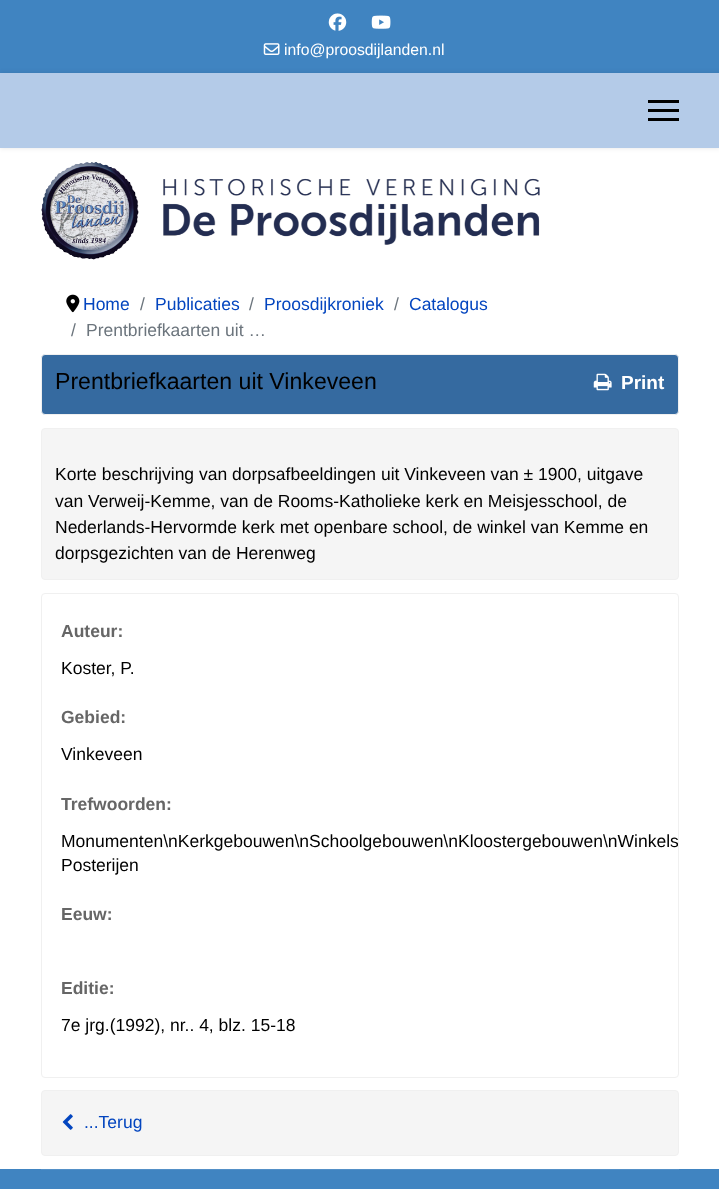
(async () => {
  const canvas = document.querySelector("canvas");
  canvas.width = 719;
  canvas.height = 1189;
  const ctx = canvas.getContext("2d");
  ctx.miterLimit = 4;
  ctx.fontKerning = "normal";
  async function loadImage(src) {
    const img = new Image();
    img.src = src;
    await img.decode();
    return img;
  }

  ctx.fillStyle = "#ffffff";
  ctx.fillRect(0, 0, 719, 1189);
  ctx.fillStyle = "#4084c1";
  ctx.fillRect(0, 0, 719, 73);
  ctx.drawImage(await loadImage("img/1.png"), 328, 13, 19, 18);
  ctx.drawImage(await loadImage("img/2.png"), 371, 15, 20, 14);
  ctx.drawImage(await loadImage("img/3.png"), 263, 43, 17, 12);
  ctx.fillStyle = "rgba(0, 0, 0, 0.1)";
  ctx.filter = "blur(2.5px)";
  ctx.beginPath();
  ctx.rect(0, 73, 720, 75);
  ctx.fill();
  ctx.filter = "none";
  for (const [x, y, w, h, color] of [
    [0, 73, 719, 75, "#b4cbe8"],
    [648, 100, 31, 3, "#000000"],
    [648, 109, 31, 3, "#000000"],
    [648, 118, 31, 3, "#000000"],
  ]) {
    ctx.fillStyle = color;
    ctx.fillRect(x, y, w, h);
  }
  ctx.drawImage(await loadImage("img/4.png"), 41, 162, 499, 98);
  ctx.drawImage(await loadImage("img/5.png"), 66, 294, 14, 19);
  ctx.fillStyle = "#356aa0";
  ctx.beginPath();
  ctx.roundRect(41.5, 354.5, 637, 60, 3.5);
  ctx.fill();
  ctx.strokeStyle = "#f0f0f0";
  ctx.stroke();
  ctx.drawImage(await loadImage("img/6.png"), 593, 373, 19, 18);
  ctx.fillStyle = "#f5f5f5";
  ctx.beginPath();
  ctx.roundRect(41.5, 428.5, 637, 151, 3.5);
  ctx.fill();
  ctx.stroke();
  ctx.beginPath();
  ctx.roundRect(41.5, 593.5, 637, 484, 3.5);
  ctx.stroke();
  ctx.beginPath();
  ctx.roundRect(41.5, 1090.5, 637, 65, 3.5);
  ctx.fill();
  ctx.stroke();
  ctx.drawImage(await loadImage("img/7.png"), 62, 1114, 11, 16);
  ctx.fillStyle = "#4084c1";
  ctx.fillRect(0, 1169, 719, 20);
  ctx.fillStyle = "#5390c7";
  ctx.fillRect(41, 1169, 638, 1);
  ctx.font = "15.75px Liberation Sans";
  ctx.fillStyle = "#ffffff";
  ctx.fillText("info@proosdijlanden.nl", 284, 55);
  ctx.font = "17.5px Liberation Sans";
  ctx.fillStyle = "#0345bf";
  ctx.fillText("Home", 83, 310);
  ctx.fillStyle = "#6c757d";
  ctx.fillText("/", 140, 310);
  ctx.fillStyle = "#0345bf";
  ctx.fillText("Publicaties", 155, 310);
  ctx.fillStyle = "#6c757d";
  ctx.fillText("/", 249, 310);
  ctx.fillStyle = "#0345bf";
  ctx.fillText("Proosdijkroniek", 264, 310);
  ctx.fillStyle = "#6c757d";
  ctx.fillText("/", 394, 310);
  ctx.fillStyle = "#0345bf";
  ctx.fillText("Catalogus", 409, 310);
  ctx.fillStyle = "#6c757d";
  ctx.fillText("/", 71, 336);
  ctx.fillText("Prentbriefkaarten uit …", 86, 336);
  ctx.font = "23.1px Liberation Sans";
  ctx.fillStyle = "#000000";
  ctx.fillText("Prentbriefkaarten uit Vinkeveen", 55, 389);
  ctx.font = "bold 19px Liberation Sans";
  ctx.fillStyle = "#ffffff";
  ctx.fillText("Print", 621, 389);
  ctx.font = "17.5px Liberation Sans";
  ctx.fillStyle = "#000000";
  for (const [text, x, y] of [
    ["Korte beschrijving van dorpsafbeeldingen uit Vinkeveen van ± 1900, uitgave", 55, 480],
    ["van Verweij-Kemme, van de Rooms-Katholieke kerk en Meisjesschool, de", 55, 507],
    ["Nederlands-Hervormde kerk met openbare school, de winkel van Kemme en", 55, 533],
    ["dorpsgezichten van de Herenweg", 55, 559],
  ]) {
    ctx.fillText(text, x, y);
  }
  ctx.font = "bold 17.5px Liberation Sans";
  ctx.fillStyle = "#666666";
  ctx.fillText("Auteur:", 61, 637);
  ctx.font = "17.5px Liberation Sans";
  ctx.fillStyle = "#000000";
  ctx.fillText("Koster, P.", 61, 674);
  ctx.font = "bold 17.5px Liberation Sans";
  ctx.fillStyle = "#666666";
  ctx.fillText("Gebied:", 61, 723);
  ctx.font = "17.5px Liberation Sans";
  ctx.fillStyle = "#000000";
  ctx.fillText("Vinkeveen", 61, 760);
  ctx.font = "bold 17.5px Liberation Sans";
  ctx.fillStyle = "#666666";
  ctx.fillText("Trefwoorden:", 61, 810);
  ctx.save();
  ctx.beginPath();
  ctx.roundRect(43, 594, 635, 482, 2.5);
  ctx.clip();
  ctx.font = "17.5px Liberation Sans";
  ctx.fillStyle = "#000000";
  ctx.fillText("Monumenten\\nKerkgebouwen\\nSchoolgebouwen\\nKloostergebouwen\\nWinkels", 61, 847);
  ctx.restore();
  ctx.font = "17.5px Liberation Sans";
  ctx.fillStyle = "#000000";
  ctx.fillText("Posterijen", 61, 871);
  ctx.font = "bold 17.5px Liberation Sans";
  ctx.fillStyle = "#666666";
  ctx.fillText("Eeuw:", 61, 920);
  ctx.fillText("Editie:", 61, 994);
  ctx.font = "17.5px Liberation Sans";
  ctx.fillStyle = "#000000";
  ctx.fillText("7e jrg.(1992), nr.. 4, blz. 15-18", 61, 1031);
  ctx.fillStyle = "#0345bf";
  ctx.fillText("...Terug", 84, 1128);
})();
